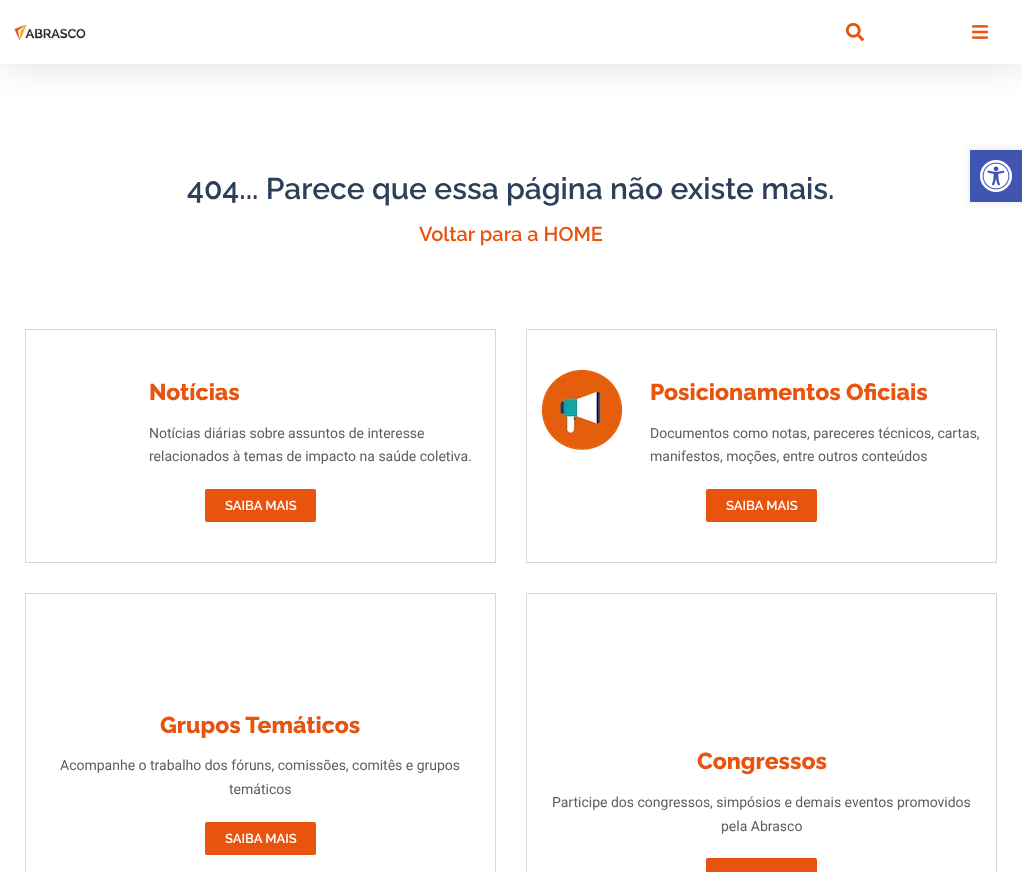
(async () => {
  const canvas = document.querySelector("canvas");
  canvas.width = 1022;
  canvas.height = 872;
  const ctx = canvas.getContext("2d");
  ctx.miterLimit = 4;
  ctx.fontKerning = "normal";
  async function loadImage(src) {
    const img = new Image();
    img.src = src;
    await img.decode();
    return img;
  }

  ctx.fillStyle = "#ffffff";
  ctx.fillRect(0, 0, 1022, 872);
  ctx.fillStyle = "rgba(0, 0, 0, 0.1)";
  ctx.filter = "blur(15px)";
  ctx.beginPath();
  ctx.rect(0, 5, 1022, 64);
  ctx.fill();
  ctx.filter = "none";
  ctx.fillStyle = "#ffffff";
  ctx.fillRect(0, 0, 1022, 64);
  ctx.drawImage(await loadImage("img/1.png"), 14, 24, 72, 17);
  ctx.drawImage(await loadImage("img/2.png"), 846, 23, 18, 18);
  ctx.drawImage(await loadImage("img/3.png"), 972, 25, 16, 14);
  ctx.strokeStyle = "#d7d7d7";
  ctx.strokeRect(25.5, 329.5, 470, 233);
  ctx.fillStyle = "#e8530e";
  ctx.beginPath();
  ctx.roundRect(205, 489, 111, 33, 2);
  ctx.fill();
  ctx.strokeRect(526.5, 329.5, 470, 233);
  ctx.drawImage(await loadImage("img/4.png"), 542, 370, 80, 80);
  ctx.beginPath();
  ctx.roundRect(706, 489, 111, 33, 2);
  ctx.fill();
  ctx.strokeRect(25.5, 593.5, 470, 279);
  ctx.beginPath();
  ctx.roundRect(205, 822, 111, 33, 2);
  ctx.fill();
  ctx.strokeRect(526.5, 593.5, 470, 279);
  ctx.beginPath();
  ctx.roundRect(706, 858, 111, 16, 2);
  ctx.fill();
  ctx.fillStyle = "rgba(0, 0, 0, 0.1)";
  ctx.filter = "blur(5px)";
  ctx.beginPath();
  ctx.rect(970, 150, 52, 52);
  ctx.fill();
  ctx.filter = "none";
  ctx.fillStyle = "#4054b2";
  ctx.fillRect(970, 150, 52, 52);
  ctx.drawImage(await loadImage("img/5.png"), 980, 160, 32, 32);
  ctx.font = "600 30px Raleway";
  ctx.fillStyle = "#2d4059";
  ctx.fillText("404... Parece que essa página não existe mais.", 187, 199);
  ctx.font = "600 20px Raleway";
  ctx.fillStyle = "#e8530e";
  ctx.fillText("Voltar para a HOME", 419, 241);
  ctx.font = "800 23px Raleway";
  ctx.fillText("Notícias", 149, 400);
  ctx.font = "14px Roboto";
  ctx.fillStyle = "#5f5e5e";
  ctx.fillText("Notícias diárias sobre assuntos de interesse", 149, 438);
  ctx.fillText("relacionados à temas de impacto na saúde coletiva.", 149, 461);
  ctx.font = "600 13px Raleway";
  ctx.fillStyle = "#ffffff";
  ctx.fillText("SAIBA MAIS", 225, 510);
  ctx.font = "800 23px Raleway";
  ctx.fillStyle = "#e8530e";
  ctx.fillText("Posicionamentos Oficiais", 650, 400);
  ctx.font = "14px Roboto";
  ctx.fillStyle = "#5f5e5e";
  ctx.fillText("Documentos como notas, pareceres técnicos, cartas,", 650, 438);
  ctx.fillText("manifestos, moções, entre outros conteúdos", 650, 461);
  ctx.font = "600 13px Raleway";
  ctx.fillStyle = "#ffffff";
  ctx.fillText("SAIBA MAIS", 726, 510);
  ctx.font = "800 23px Raleway";
  ctx.fillStyle = "#e8530e";
  ctx.fillText("Grupos Temáticos", 160, 733);
  ctx.font = "14px Roboto";
  ctx.fillStyle = "#5f5e5e";
  ctx.fillText("Acompanhe o trabalho dos fóruns, comissões, comitês e grupos", 60, 770);
  ctx.fillText("temáticos", 229, 794);
  ctx.font = "600 13px Raleway";
  ctx.fillStyle = "#ffffff";
  ctx.fillText("SAIBA MAIS", 225, 843);
  ctx.font = "800 23px Raleway";
  ctx.fillStyle = "#e8530e";
  ctx.fillText("Congressos", 697, 769);
  ctx.font = "14px Roboto";
  ctx.fillStyle = "#5f5e5e";
  ctx.fillText("Participe dos congressos, simpósios e demais eventos promovidos", 552, 807);
  ctx.fillText("pela Abrasco", 721, 831);
})();
